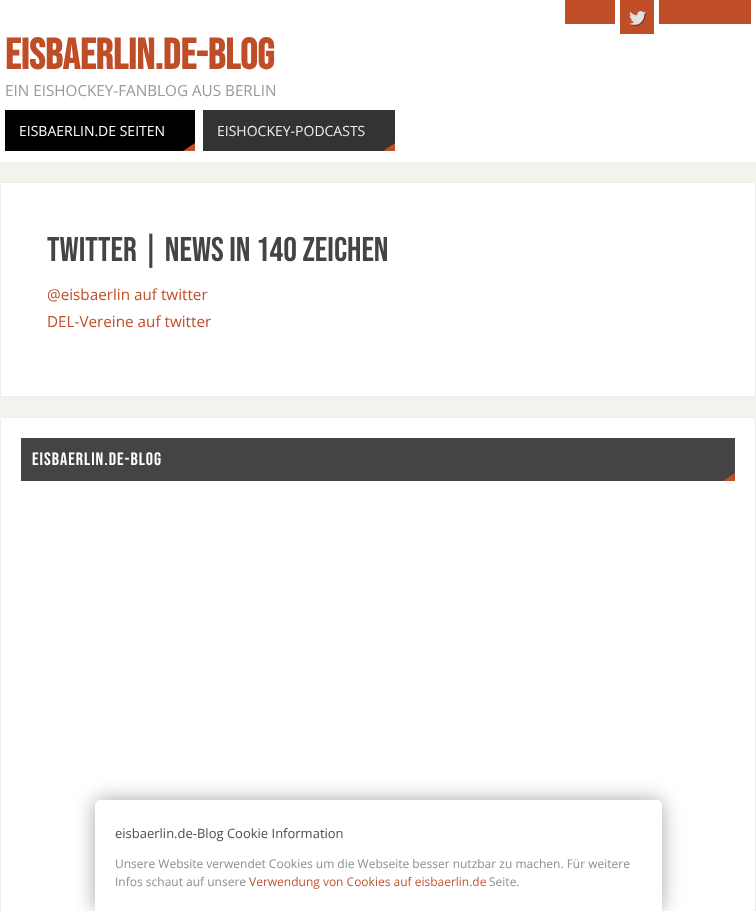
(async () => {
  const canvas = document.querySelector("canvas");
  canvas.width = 756;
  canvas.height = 911;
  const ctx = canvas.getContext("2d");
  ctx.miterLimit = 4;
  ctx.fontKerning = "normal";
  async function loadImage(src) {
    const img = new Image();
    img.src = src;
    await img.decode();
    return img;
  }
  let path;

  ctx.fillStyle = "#f3f3ee";
  ctx.fillRect(0, 0, 756, 911);
  for (const [x, y, w, h, color] of [
    [0, 0, 756, 162, "#ffffff"],
    [565, 0, 50, 24, "#bf4d28"],
    [620, 0, 34, 34, "#bf4d28"],
  ]) {
    ctx.fillStyle = color;
    ctx.fillRect(x, y, w, h);
  }
  ctx.drawImage(await loadImage("img/1.png"), 629, 11, 18, 15);
  ctx.fillRect(659, 0, 92, 24);
  ctx.fillStyle = "#000000";
  ctx.fillRect(5, 110, 190, 41);
  ctx.fillStyle = "#bf4d28";
  path = new Path2D("M195 151H183L195 143Z");
  ctx.fill(path);
  ctx.fillStyle = "#333333";
  ctx.fillRect(203, 110, 192, 41);
  ctx.fillStyle = "#bf4d28";
  path = new Path2D("M395 151H383L395 143Z");
  ctx.fill(path);
  ctx.fillStyle = "#ffffff";
  ctx.beginPath();
  ctx.rect(0.5, 182.5, 755, 214);
  ctx.fill();
  ctx.strokeStyle = "#eeeeee";
  ctx.stroke();
  ctx.beginPath();
  ctx.rect(0.5, 417.5, 755, 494);
  ctx.fill();
  ctx.stroke();
  ctx.fillStyle = "#444444";
  ctx.fillRect(21, 438, 714, 43);
  ctx.fillStyle = "#bf4d28";
  path = new Path2D("M735 481H723L735 473Z");
  ctx.fill(path);
  ctx.fillStyle = "#a6a6a6";
  ctx.filter = "blur(10px)";
  ctx.beginPath();
  ctx.roundRect(95, 800, 567, 111, 5);
  ctx.fill();
  ctx.filter = "none";
  ctx.fillStyle = "#ffffff";
  ctx.beginPath();
  ctx.roundRect(95, 800, 567, 111, [5, 5, 0, 0]);
  ctx.fill();
  ctx.font = "bold 43.25px Bebas Neue";
  ctx.fillStyle = "#bf4d28";
  ctx.fillText("EISBAERLIN.DE-BLOG", 5, 69);
  ctx.font = "15.25px Open Sans";
  ctx.fillStyle = "#999999";
  ctx.fillText("EIN EISHOCKEY-FANBLOG AUS BERLIN", 5, 96);
  ctx.font = "14px Open Sans";
  ctx.fillStyle = "#ffffff";
  ctx.fillText("EISBAERLIN.DE SEITEN", 19, 136);
  ctx.fillStyle = "#eeeeee";
  ctx.fillText("EISHOCKEY-PODCASTS", 217, 136);
  ctx.font = "34.25px Bebas Neue";
  ctx.fillStyle = "#444444";
  ctx.fillText("twitter | News in 140 Zeichen", 47, 261);
  ctx.font = "15.25px Open Sans";
  ctx.fillStyle = "#bf4d28";
  ctx.fillText("@eisbaerlin auf twitter", 47, 300);
  ctx.fillText("DEL-Vereine auf twitter", 47, 327);
  ctx.letterSpacing = "1px";
  ctx.font = "18px Bebas Neue";
  ctx.fillStyle = "#ffffff";
  ctx.fillText("EISBAERLIN.DE-BLOG", 32, 465);
  ctx.letterSpacing = "0px";
  ctx.font = "13px Open Sans";
  ctx.fillStyle = "#4d4d4d";
  ctx.fillText("eisbaerlin.de-Blog Cookie Information", 115, 838);
  ctx.font = "12px Open Sans";
  ctx.fillStyle = "#8e8e8e";
  ctx.fillText("Unsere Website verwendet Cookies um die Webseite besser nutzbar zu machen. Für weitere", 115, 868);
  ctx.fillText("Infos schaut auf unsere", 115, 886);
  ctx.fillStyle = "#c25633";
  ctx.fillText("Verwendung von Cookies auf eisbaerlin.de", 249, 886);
  ctx.fillStyle = "#8e8e8e";
  ctx.fillText("Seite.", 489, 886);
})();
